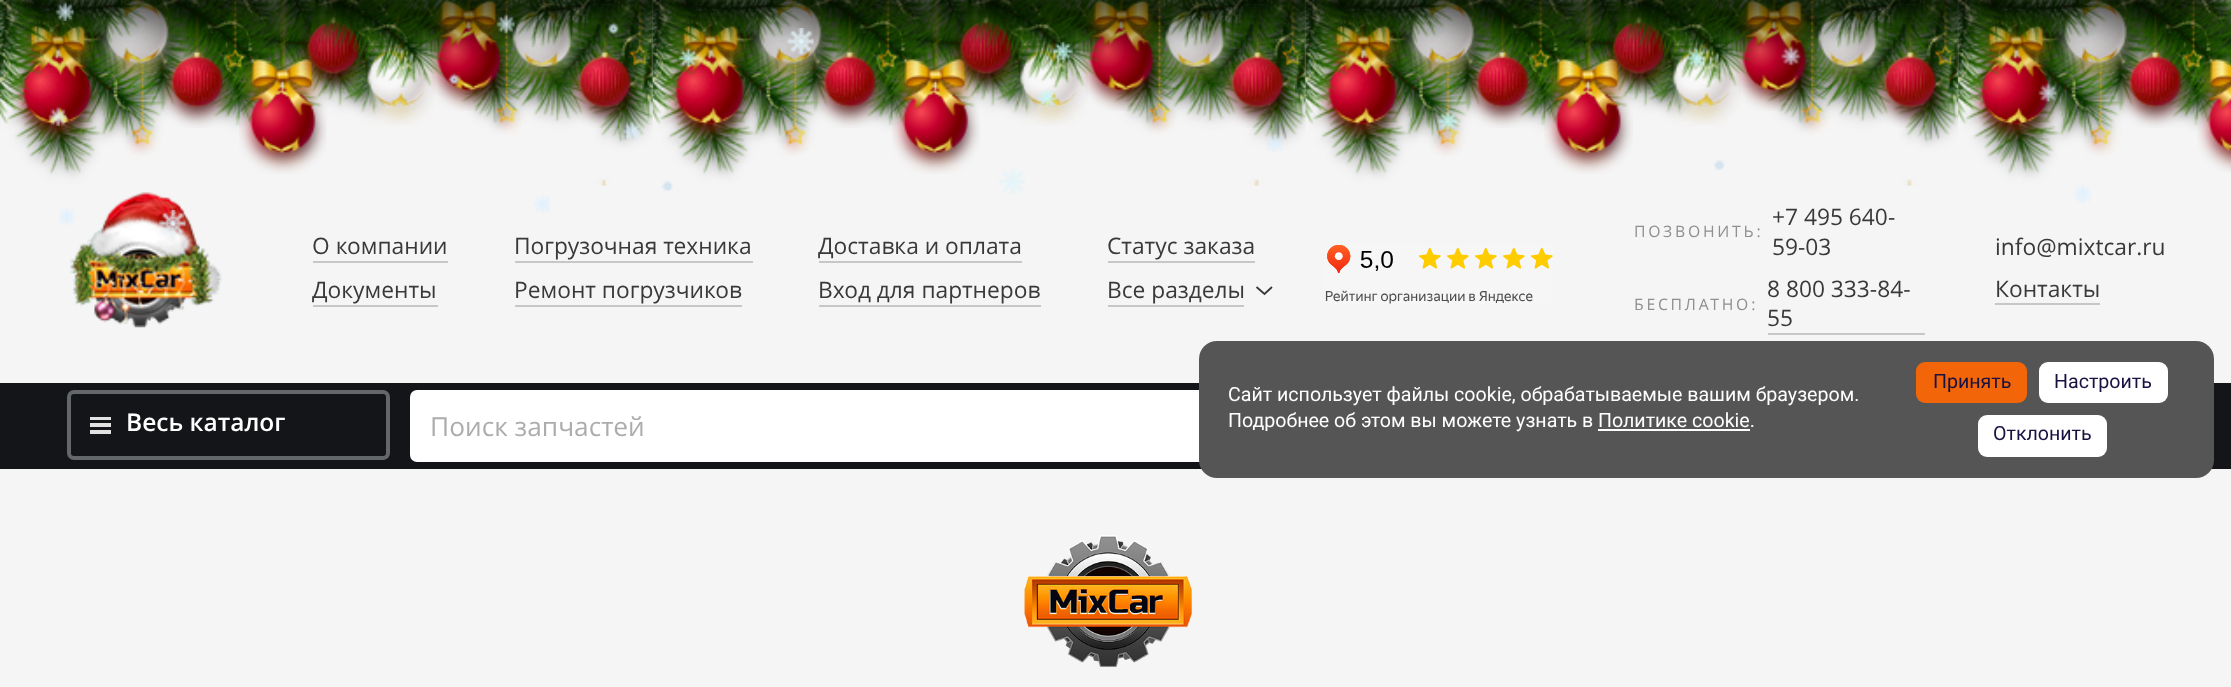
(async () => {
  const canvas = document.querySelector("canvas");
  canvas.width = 2231;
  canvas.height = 687;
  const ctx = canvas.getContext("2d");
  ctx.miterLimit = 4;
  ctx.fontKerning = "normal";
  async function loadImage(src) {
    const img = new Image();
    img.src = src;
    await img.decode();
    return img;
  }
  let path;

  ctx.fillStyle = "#f5f5f5";
  ctx.fillRect(0, 0, 2231, 687);
  ctx.drawImage(await loadImage("img/22.png"), 0, 0, 2231, 186);
  ctx.drawImage(await loadImage("img/24.png"), 11, 0, 91, 143);
  ctx.drawImage(await loadImage("img/23.png"), 0, 0, 44, 124);
  ctx.drawImage(await loadImage("img/26.png"), 95, 0, 85, 82);
  ctx.drawImage(await loadImage("img/25.png"), 43, 0, 107, 47);
  ctx.drawImage(await loadImage("img/27.png"), 239, 0, 88, 174);
  ctx.drawImage(await loadImage("img/28.png"), 297, 0, 71, 94);
  ctx.drawImage(await loadImage("img/34.png"), 357, 10, 78, 116);
  ctx.drawImage(await loadImage("img/29.png"), 309, 0, 50, 54);
  ctx.drawImage(await loadImage("img/31.png"), 426, 0, 85, 111);
  ctx.drawImage(await loadImage("img/30.png"), 358, 0, 89, 88);
  ctx.drawImage(await loadImage("img/32.png"), 503, 0, 80, 86);
  ctx.drawImage(await loadImage("img/33.png"), 161, 16, 71, 112);
  ctx.drawImage(await loadImage("img/37.png"), 569, 17, 72, 111);
  ctx.drawImage(await loadImage("img/35.png"), 506, 0, 137, 49);
  ctx.drawImage(await loadImage("img/36.png"), 642, 0, 11, 121);
  ctx.drawImage(await loadImage("img/39.png"), 664, 0, 91, 143);
  ctx.drawImage(await loadImage("img/38.png"), 652, 0, 45, 124);
  ctx.drawImage(await loadImage("img/41.png"), 747, 0, 86, 82);
  ctx.drawImage(await loadImage("img/40.png"), 696, 0, 107, 47);
  ctx.drawImage(await loadImage("img/42.png"), 892, 0, 88, 174);
  ctx.drawImage(await loadImage("img/43.png"), 950, 0, 71, 94);
  ctx.drawImage(await loadImage("img/49.png"), 1010, 10, 78, 116);
  ctx.drawImage(await loadImage("img/44.png"), 962, 0, 50, 54);
  ctx.drawImage(await loadImage("img/46.png"), 1079, 0, 85, 111);
  ctx.drawImage(await loadImage("img/45.png"), 1011, 0, 88, 88);
  ctx.drawImage(await loadImage("img/47.png"), 1155, 0, 81, 86);
  ctx.drawImage(await loadImage("img/48.png"), 813, 16, 72, 112);
  ctx.drawImage(await loadImage("img/52.png"), 1221, 17, 73, 111);
  ctx.drawImage(await loadImage("img/50.png"), 1158, 0, 137, 49);
  ctx.drawImage(await loadImage("img/51.png"), 1295, 0, 11, 121);
  ctx.drawImage(await loadImage("img/54.png"), 1317, 0, 91, 143);
  ctx.drawImage(await loadImage("img/53.png"), 1305, 0, 45, 124);
  ctx.drawImage(await loadImage("img/56.png"), 1400, 0, 85, 82);
  ctx.drawImage(await loadImage("img/55.png"), 1349, 0, 107, 47);
  ctx.drawImage(await loadImage("img/57.png"), 1544, 0, 89, 174);
  ctx.drawImage(await loadImage("img/58.png"), 1602, 0, 72, 94);
  ctx.drawImage(await loadImage("img/64.png"), 1663, 10, 78, 116);
  ctx.drawImage(await loadImage("img/59.png"), 1615, 0, 50, 54);
  ctx.drawImage(await loadImage("img/61.png"), 1732, 0, 85, 111);
  ctx.drawImage(await loadImage("img/60.png"), 1664, 0, 88, 88);
  ctx.drawImage(await loadImage("img/62.png"), 1808, 0, 80, 86);
  ctx.drawImage(await loadImage("img/63.png"), 1466, 15, 72, 113);
  ctx.drawImage(await loadImage("img/67.png"), 1874, 17, 73, 111);
  ctx.drawImage(await loadImage("img/65.png"), 1811, 0, 137, 49);
  ctx.drawImage(await loadImage("img/66.png"), 1947, 0, 12, 121);
  ctx.drawImage(await loadImage("img/69.png"), 1970, 0, 90, 143);
  ctx.drawImage(await loadImage("img/68.png"), 1958, 0, 44, 124);
  ctx.drawImage(await loadImage("img/71.png"), 2053, 0, 85, 82);
  ctx.drawImage(await loadImage("img/70.png"), 2002, 0, 107, 47);
  ctx.drawImage(await loadImage("img/72.png"), 2119, 15, 72, 113);
  ctx.drawImage(await loadImage("img/73.png"), 2197, 57, 34, 115);
  ctx.fillStyle = "rgba(0, 0, 0, 0.75)";
  ctx.filter = "blur(26px)";
  ctx.beginPath();
  ctx.rect(0, -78, 2231, 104);
  ctx.fill();
  ctx.filter = "none";
  ctx.drawImage(await loadImage("img/1.png"), 55, 1, 19, 20);
  ctx.drawImage(await loadImage("img/2.png"), 496, 13, 19, 21);
  ctx.drawImage(await loadImage("img/3.png"), 607, 22, 13, 12);
  ctx.drawImage(await loadImage("img/4.png"), 678, 48, 21, 19);
  ctx.drawImage(await loadImage("img/5.png"), 787, 28, 27, 27);
  ctx.drawImage(await loadImage("img/6.png"), 1053, 41, 20, 19);
  ctx.drawImage(await loadImage("img/7.png"), 1686, 48, 21, 19);
  ctx.drawImage(await loadImage("img/8.png"), 1781, 45, 20, 21);
  ctx.drawImage(await loadImage("img/9.png"), 447, 73, 13, 12);
  ctx.drawImage(await loadImage("img/10.png"), 1037, 89, 20, 18);
  ctx.drawImage(await loadImage("img/11.png"), 2038, 82, 21, 20);
  ctx.drawImage(await loadImage("img/12.png"), 48, 106, 19, 20);
  ctx.drawImage(await loadImage("img/13.png"), 622, 120, 20, 20);
  ctx.drawImage(await loadImage("img/14.png"), 1438, 111, 20, 19);
  ctx.drawImage(await loadImage("img/15.png"), 1266, 133, 17, 20);
  ctx.drawImage(await loadImage("img/16.png"), 1713, 159, 12, 12);
  ctx.drawImage(await loadImage("img/17.png"), 534, 195, 17, 19);
  ctx.drawImage(await loadImage("img/18.png"), 661, 180, 12, 11);
  ctx.drawImage(await loadImage("img/19.png"), 999, 168, 27, 26);
  ctx.drawImage(await loadImage("img/20.png"), 2074, 184, 17, 19);
  ctx.drawImage(await loadImage("img/74.png"), 70, 192, 152, 136);
  ctx.drawImage(await loadImage("img/21.png"), 58, 207, 17, 19);
  for (const [x, y, w, h, color] of [
    [313, 261, 135, 2, "#c7c7c7"],
    [313, 305, 125, 2, "#c7c7c7"],
    [515, 261, 238, 2, "#c7c7c7"],
    [515, 305, 227, 2, "#c7c7c7"],
    [819, 261, 203, 2, "#c7c7c7"],
    [819, 305, 222, 2, "#c7c7c7"],
    [1108, 261, 147, 2, "#c7c7c7"],
    [1108, 305, 136, 2, "#c7c7c7"],
  ]) {
    ctx.fillStyle = color;
    ctx.fillRect(x, y, w, h);
  }
  path = new Path2D("M1256.5 287L1264.5 294L1272 287");
  ctx.strokeStyle = "#393939";
  ctx.lineWidth = 1.8;
  ctx.stroke(path);
  ctx.drawImage(await loadImage("img/75.png"), 1325, 245, 228, 59);
  for (const [x, y, w, h, color] of [
    [1768, 333, 157, 2, "#c7c7c7"],
    [1995, 303, 105, 2, "#c7c7c7"],
    [0, 383, 2231, 86, "#131519"],
  ]) {
    ctx.fillStyle = color;
    ctx.fillRect(x, y, w, h);
  }
  ctx.beginPath();
  ctx.roundRect(69, 392, 319, 66, 5);
  ctx.strokeStyle = "#64676a";
  ctx.lineWidth = 4;
  ctx.stroke();
  for (const [x, y, w, h, color] of [
    [90, 417, 21, 3, "#e2e2e2"],
    [90, 423, 21, 4, "#e2e2e2"],
    [90, 430, 21, 4, "#e2e2e2"],
  ]) {
    ctx.fillStyle = color;
    ctx.fillRect(x, y, w, h);
  }
  ctx.fillStyle = "#ffffff";
  ctx.beginPath();
  ctx.roundRect(410, 390, 1340, 72, 7);
  ctx.fill();
  ctx.fillStyle = "#555555";
  ctx.beginPath();
  ctx.roundRect(1199, 341, 1015, 137, 18);
  ctx.fill();
  ctx.fillStyle = "#ffffff";
  ctx.fillRect(1598, 429, 152, 2);
  ctx.fillStyle = "#f36509";
  ctx.beginPath();
  ctx.roundRect(1916, 362, 111, 41, 9);
  ctx.fill();
  ctx.fillStyle = "#ffffff";
  ctx.beginPath();
  ctx.roundRect(2039, 362, 129, 41, 9);
  ctx.fill();
  ctx.beginPath();
  ctx.roundRect(1978, 415, 129, 42, 9);
  ctx.fill();
  ctx.drawImage(await loadImage("img/76.png"), 1024, 535, 168, 132);
  ctx.drawImage(await loadImage("img/77.png"), 159, 210, 27, 26);
  ctx.font = "22.75px Open Sans";
  ctx.fillStyle = "#393939";
  for (const [text, x, y] of [
    ["О компании", 312, 254],
    ["Документы", 312, 298],
    ["Погрузочная техника", 514, 254],
    ["Ремонт погрузчиков", 514, 298],
    ["Доставка и оплата", 818, 254],
    ["Вход для партнеров", 818, 298],
    ["Статус заказа", 1107, 254],
    ["Все разделы", 1107, 298],
  ]) {
    ctx.fillText(text, x, y);
  }
  ctx.letterSpacing = "2.75px";
  ctx.font = "15.75px Open Sans";
  ctx.fillStyle = "#8f8f8f";
  ctx.fillText("ПОЗВОНИТЬ:", 1634, 237);
  ctx.letterSpacing = "0px";
  ctx.font = "22.75px Open Sans";
  ctx.fillStyle = "#393939";
  ctx.fillText("+7 495 640-", 1772, 225);
  ctx.fillText("59-03", 1772, 255);
  ctx.letterSpacing = "2.75px";
  ctx.font = "15.75px Open Sans";
  ctx.fillStyle = "#8f8f8f";
  ctx.fillText("БЕСПЛАТНО:", 1634, 310);
  ctx.letterSpacing = "0px";
  ctx.font = "22.75px Open Sans";
  ctx.fillStyle = "#393939";
  for (const [text, x, y] of [
    ["8 800 333-84-", 1767, 297],
    ["55", 1767, 326],
    ["info@mixtcar.ru", 1995, 255],
    ["Контакты", 1995, 297],
  ]) {
    ctx.fillText(text, x, y);
  }
  ctx.font = "600 24.5px Open Sans";
  ctx.fillStyle = "#ffffff";
  ctx.fillText("Весь каталог", 126, 431);
  ctx.font = "26.25px Open Sans";
  ctx.fillStyle = "#acacac";
  ctx.fillText("Поиск запчастей", 430, 436);
  ctx.font = "19.6px Roboto";
  ctx.fillStyle = "#ffffff";
  for (const [text, x, y] of [
    ["Сайт использует файлы cookie, обрабатываемые вашим браузером.", 1228, 401],
    ["Подробнее об этом вы можете узнать в", 1228, 427],
    ["Политике cookie.", 1598, 427],
  ]) {
    ctx.fillText(text, x, y);
  }
  ctx.fillStyle = "#171241";
  for (const [text, x, y] of [
    ["Принять", 1933, 388],
    ["Настроить", 2054, 388],
    ["Отклонить", 1993, 440],
  ]) {
    ctx.fillText(text, x, y);
  }
})();
